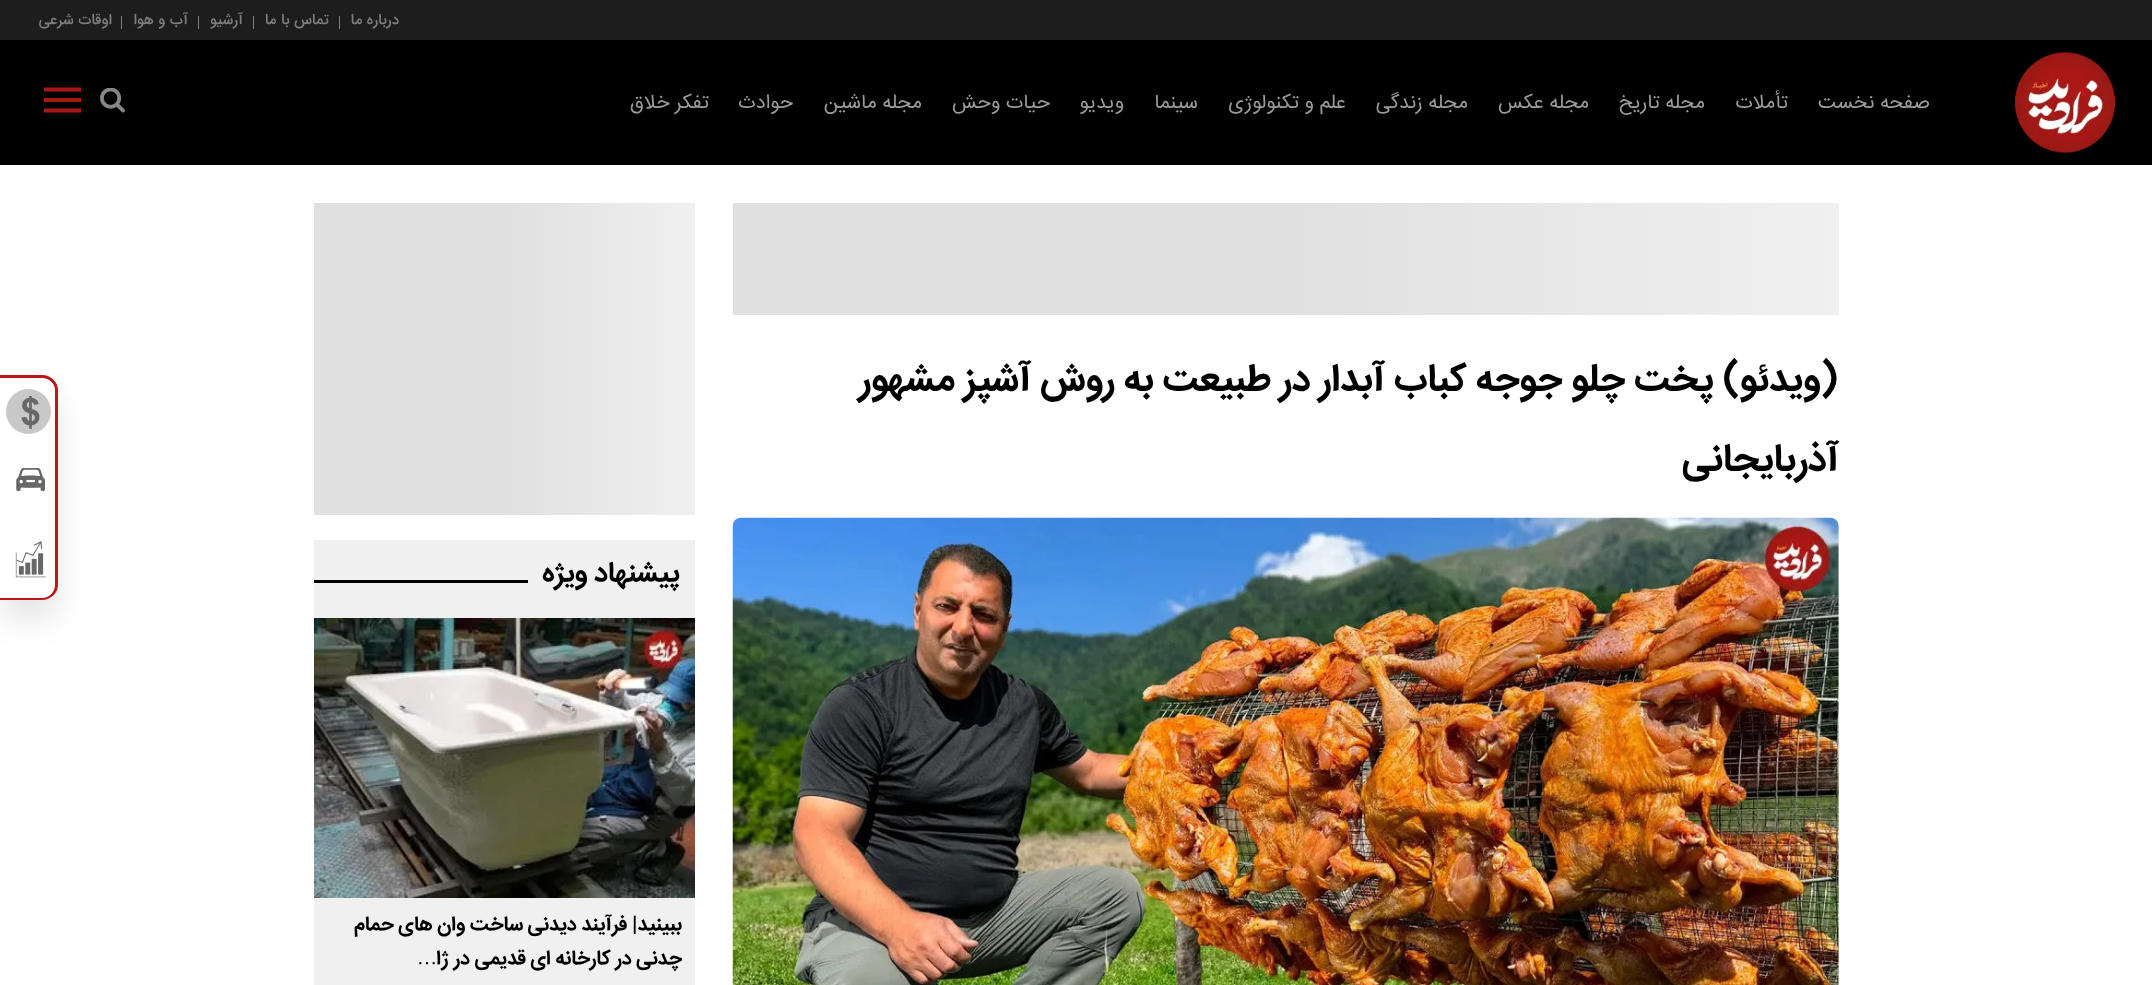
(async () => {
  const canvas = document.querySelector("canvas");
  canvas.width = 2152;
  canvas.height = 985;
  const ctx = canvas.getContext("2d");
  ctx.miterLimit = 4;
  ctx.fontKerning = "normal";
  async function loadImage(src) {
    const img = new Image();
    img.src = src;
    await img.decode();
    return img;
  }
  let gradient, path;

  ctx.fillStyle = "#ffffff";
  ctx.fillRect(0, 0, 2152, 985);
  for (const [x, y, w, h, color] of [
    [0, 0, 2152, 40, "#1d1d1d"],
    [339, 16, 1, 13, "#7e7e7e"],
    [253, 16, 1, 13, "#7e7e7e"],
    [198, 16, 1, 13, "#7e7e7e"],
    [121, 16, 1, 13, "#7e7e7e"],
    [0, 40, 2152, 125, "#000000"],
  ]) {
    ctx.fillStyle = color;
    ctx.fillRect(x, y, w, h);
  }
  ctx.drawImage(await loadImage("img/1.png"), 2015, 52, 100, 101);
  ctx.drawImage(await loadImage("img/2.png"), 100, 88, 25, 25);
  ctx.fillStyle = "#aa1816";
  path = new Path2D("M44 108.5H81V112.5H44ZM44 98H81V102H44ZM44 87.5H81V91.5H44Z");
  ctx.fill(path, "evenodd");
  gradient = ctx.createLinearGradient(733, 259, 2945, 259);
  gradient.addColorStop(0.25, "#e0e0e0");
  gradient.addColorStop(0.5, "#f0f0f0");
  gradient.addColorStop(0.75, "#e0e0e0");
  ctx.fillStyle = gradient;
  ctx.fillRect(733, 203, 1106, 112);
  ctx.drawImage(await loadImage("img/3.png"), 732, 517, 1107, 468);
  gradient = ctx.createLinearGradient(314, 359, 1076, 359);
  gradient.addColorStop(0.25, "#e0e0e0");
  gradient.addColorStop(0.5, "#f0f0f0");
  gradient.addColorStop(0.75, "#e0e0e0");
  ctx.fillStyle = gradient;
  ctx.fillRect(314, 203, 381, 312);
  ctx.fillStyle = "#f0f0f0";
  ctx.fillRect(314, 540, 381, 445);
  ctx.fillStyle = "#000000";
  ctx.fillRect(314, 580, 214, 3);
  ctx.drawImage(await loadImage("img/4.png"), 314, 618, 381, 280);
  ctx.fillStyle = "rgba(0, 0, 0, 0.1)";
  ctx.filter = "blur(15.5px)";
  ctx.beginPath();
  ctx.roundRect(0, 394, 58, 225, 15);
  ctx.fill();
  ctx.filter = "none";
  ctx.fillStyle = "#ffffff";
  ctx.beginPath();
  ctx.roundRect(0, 375, 58, 225, [0, 15, 15, 0]);
  ctx.fill();
  ctx.fillStyle = "#bb1919";
  path = new Path2D("M0 375H42C51 375 58 382 58 390V585C58 593 51 600 42 600H0ZM0 378H42C49 378 55 383 55 390V585C55 592 49 598 42 598H0Z");
  ctx.fill(path, "evenodd");
  ctx.fillStyle = "#c8c8c8";
  ctx.beginPath();
  ctx.arc(28.5, 411.5, 22.5, 0, Math.PI * 2);
  ctx.fill();
  ctx.drawImage(await loadImage("img/5.png"), 21, 396, 19, 33);
  ctx.drawImage(await loadImage("img/6.png"), 16, 468, 29, 23);
  ctx.drawImage(await loadImage("img/7.png"), 15, 541, 31, 37);
  ctx.direction = "rtl";
  ctx.font = "500 15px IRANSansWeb";
  ctx.fillStyle = "#7e7e7e";
  for (const [text, x, y] of [
    ["درباره ما", 399, 24],
    ["تماس با ما", 329, 24],
    ["آرشیو", 243, 24],
    ["آب و هوا", 188, 24],
    ["اوقات شرعی", 112, 24],
  ]) {
    ctx.fillText(text, x, y);
  }
  ctx.font = "20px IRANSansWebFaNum";
  ctx.fillStyle = "#9b9b9b";
  for (const [text, x, y] of [
    ["صفحه نخست", 1930, 108],
    ["تأملات", 1788, 108],
    ["مجله تاریخ", 1705, 108],
    ["مجله عکس", 1589, 108],
    ["مجله زندگی", 1468, 108],
    ["علم و تکنولوژی", 1346, 108],
    ["سینما", 1198, 108],
    ["ویدیو", 1124, 108],
    ["حیات وحش", 1050, 108],
    ["مجله ماشین", 922, 108],
    ["حوادث", 793, 108],
    ["تفکر خلاق", 709, 108],
  ]) {
    ctx.fillText(text, x, y);
  }
  ctx.font = "bold 38px IRANSansWebFaNum";
  ctx.fillStyle = "#000000";
  ctx.fillText("(ویدئو) پخت چلو جوجه کباب آبدار در طبیعت به روش آشپز مشهور", 1839, 390);
  ctx.fillText("آذربایجانی", 1839, 470);
  ctx.font = "bold 28px IRANSansWebFaNum";
  ctx.fillText("پیشنهاد ویژه", 680, 581);
  ctx.font = "bold 20px IRANSansWebFaNum";
  ctx.fillText("ببینید| فرآیند دیدنی ساخت وان های حمام", 682, 930);
  ctx.fillText("چدنی در کارخانه ای قدیمی در ژا", 682, 964);
  ctx.font = "20px Liberation Serif";
  ctx.fillText("…", 437, 964);
})();
